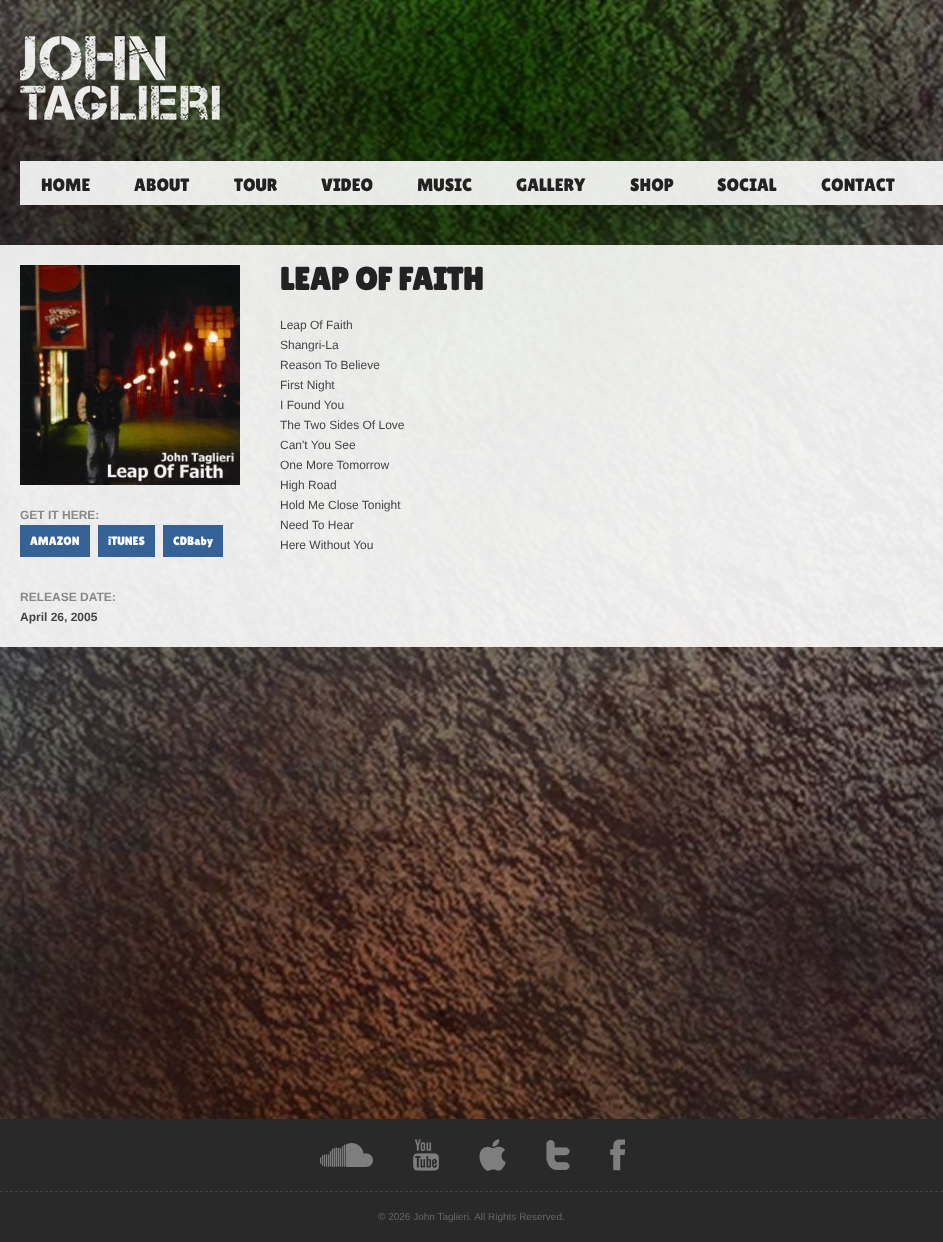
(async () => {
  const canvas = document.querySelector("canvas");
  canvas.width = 943;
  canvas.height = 1242;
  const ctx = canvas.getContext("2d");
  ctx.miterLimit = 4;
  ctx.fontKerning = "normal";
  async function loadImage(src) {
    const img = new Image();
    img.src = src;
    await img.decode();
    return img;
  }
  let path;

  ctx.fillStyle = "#ffffff";
  ctx.fillRect(0, 0, 943, 1242);
  ctx.drawImage(await loadImage("img/1.png"), 0, 0, 943, 1119);
  ctx.drawImage(await loadImage("img/2.png"), 20, 36, 200, 84);
  ctx.fillStyle = "rgba(255, 255, 255, 0.9)";
  ctx.fillRect(20, 161, 923, 44);
  ctx.fillRect(0, 245, 943, 402);
  ctx.drawImage(await loadImage("img/3.png"), 20, 265, 220, 220);
  for (const [x, y, w, h, color] of [
    [20, 525, 70, 32, "#356296"],
    [98, 525, 57, 32, "#356296"],
    [163, 525, 60, 32, "#356296"],
    [0, 1119, 943, 123, "#292929"],
  ]) {
    ctx.fillStyle = color;
    ctx.fillRect(x, y, w, h);
  }
  path = new Path2D("M0 1191.5H943");
  ctx.strokeStyle = "#444444";
  ctx.setLineDash([3, 2]);
  ctx.stroke(path);
  ctx.drawImage(await loadImage("img/4.png"), 319, 1143, 54, 24);
  ctx.drawImage(await loadImage("img/5.png"), 413, 1139, 26, 32);
  ctx.drawImage(await loadImage("img/6.png"), 479, 1139, 27, 32);
  ctx.drawImage(await loadImage("img/7.png"), 546, 1140, 24, 30);
  ctx.drawImage(await loadImage("img/8.png"), 610, 1139, 15, 32);
  ctx.font = "18px Lilita One";
  ctx.fillStyle = "#222222";
  for (const [text, x, y] of [
    ["HOME", 41, 191],
    ["ABOUT", 134, 191],
    ["TOUR", 234, 191],
    ["VIDEO", 321, 191],
    ["MUSIC", 417, 191],
    ["GALLERY", 516, 191],
    ["SHOP", 630, 191],
    ["SOCIAL", 717, 191],
    ["CONTACT", 821, 191],
  ]) {
    ctx.fillText(text, x, y);
  }
  ctx.font = "bold 32px Lilita One";
  ctx.fillText("LEAP OF FAITH", 280, 290);
  ctx.font = "12px Liberation Sans";
  ctx.fillStyle = "#444444";
  for (const [text, x, y] of [
    ["Leap Of Faith", 280, 329],
    ["Shangri-La", 280, 349],
    ["Reason To Believe", 280, 369],
    ["First Night", 280, 389],
    ["I Found You", 280, 409],
    ["The Two Sides Of Love", 280, 429],
    ["Can't You See", 280, 449],
    ["One More Tomorrow", 280, 469],
    ["High Road", 280, 489],
    ["Hold Me Close Tonight", 280, 509],
    ["Need To Hear", 280, 529],
    ["Here Without You", 280, 549],
  ]) {
    ctx.fillText(text, x, y);
  }
  ctx.font = "bold 12px Liberation Sans";
  ctx.fillStyle = "#888888";
  ctx.fillText("GET IT HERE:", 20, 519);
  ctx.font = "12px Lilita One";
  ctx.fillStyle = "#ffffff";
  for (const [text, x, y] of [
    ["AMAZON", 30, 545],
    ["iTUNES", 108, 545],
    ["CDBaby", 173, 545],
  ]) {
    ctx.fillText(text, x, y);
  }
  ctx.font = "bold 12px Liberation Sans";
  ctx.fillStyle = "#888888";
  ctx.fillText("RELEASE DATE:", 20, 601);
  ctx.fillStyle = "#444444";
  ctx.fillText("April 26, 2005", 20, 621);
  ctx.font = "10px Liberation Sans";
  ctx.fillStyle = "#666666";
  ctx.fillText("© 2026 John Taglieri. All Rights Reserved.", 378, 1220);
})();
